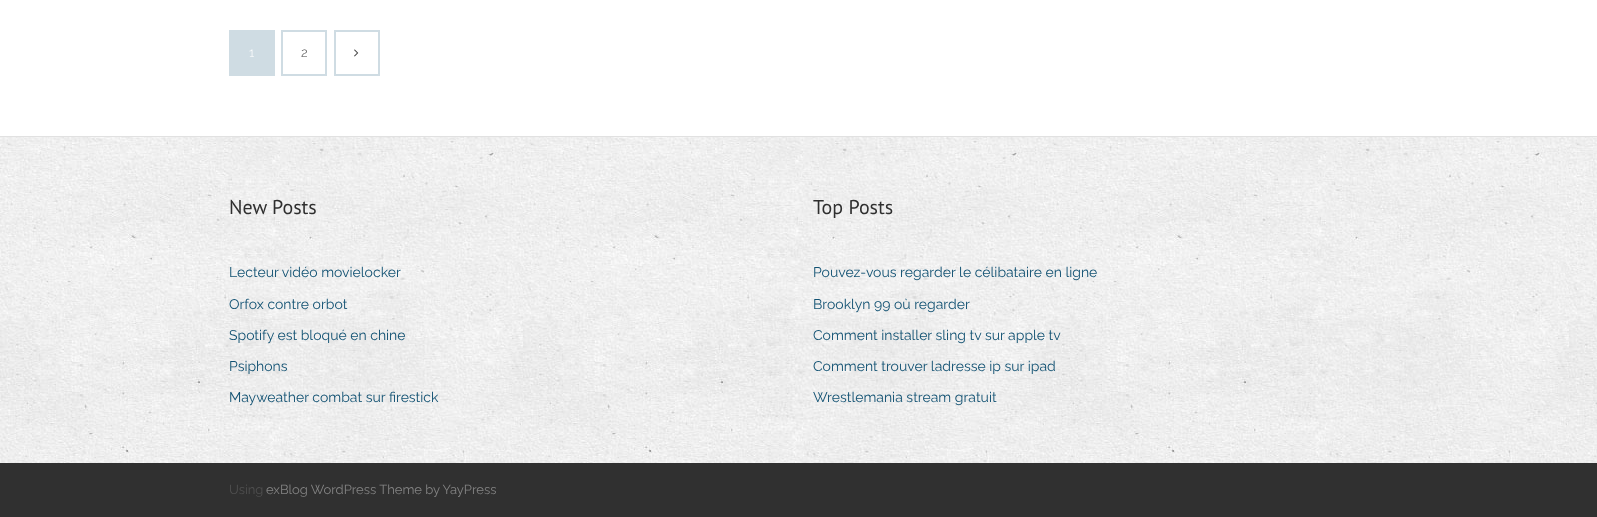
(async () => {
  const canvas = document.querySelector("canvas");
  canvas.width = 1597;
  canvas.height = 517;
  const ctx = canvas.getContext("2d");
  ctx.miterLimit = 4;
  ctx.fontKerning = "normal";
  async function loadImage(src) {
    const img = new Image();
    img.src = src;
    await img.decode();
    return img;
  }

  ctx.fillStyle = "#ffffff";
  ctx.fillRect(0, 0, 1597, 517);
  ctx.strokeStyle = "#cfdce3";
  ctx.lineWidth = 2;
  ctx.strokeRect(230, 31, 44, 44);
  ctx.fillStyle = "#cfdce3";
  ctx.fillRect(231, 32, 42, 42);
  ctx.strokeRect(282, 31, 44, 44);
  ctx.strokeRect(335, 31, 44, 44);
  ctx.drawImage(await loadImage("img/1.png"), 354, 49, 5, 8);
  ctx.drawImage(await loadImage("img/2.png"), 0, 137, 1597, 326);
  ctx.fillStyle = "#e1e1e1";
  ctx.fillRect(0, 136, 1597, 1);
  ctx.fillStyle = "#303030";
  ctx.fillRect(0, 463, 1597, 54);
  ctx.font = "300 13px Raleway";
  ctx.fillStyle = "#ffffff";
  ctx.fillText("1", 249, 57);
  ctx.fillStyle = "#3d3d3d";
  ctx.fillText("2", 301, 57);
  ctx.font = "20px PT Sans";
  ctx.fillStyle = "#2f2f2f";
  ctx.fillText("New Posts", 229, 214);
  ctx.font = "14px Raleway";
  ctx.fillStyle = "#115172";
  for (const [text, x, y] of [
    ["Lecteur vidéo movielocker", 229, 277],
    ["Orfox contre orbot", 229, 309],
    ["Spotify est bloqué en chine", 229, 340],
    ["Psiphons", 229, 371],
    ["Mayweather combat sur firestick", 229, 402],
  ]) {
    ctx.fillText(text, x, y);
  }
  ctx.font = "20px PT Sans";
  ctx.fillStyle = "#2f2f2f";
  ctx.fillText("Top Posts", 813, 214);
  ctx.font = "14px Raleway";
  ctx.fillStyle = "#115172";
  for (const [text, x, y] of [
    ["Pouvez-vous regarder le célibataire en ligne", 813, 277],
    ["Brooklyn 99 où regarder", 813, 309],
    ["Comment installer sling tv sur apple tv", 813, 340],
    ["Comment trouver ladresse ip sur ipad", 813, 371],
    ["Wrestlemania stream gratuit", 813, 402],
  ]) {
    ctx.fillText(text, x, y);
  }
  ctx.font = "13px Raleway";
  ctx.fillStyle = "#505050";
  ctx.fillText("Using", 229, 494);
  ctx.fillStyle = "#848484";
  ctx.fillText("exBlog WordPress Theme by YayPress", 266, 494);
})();
